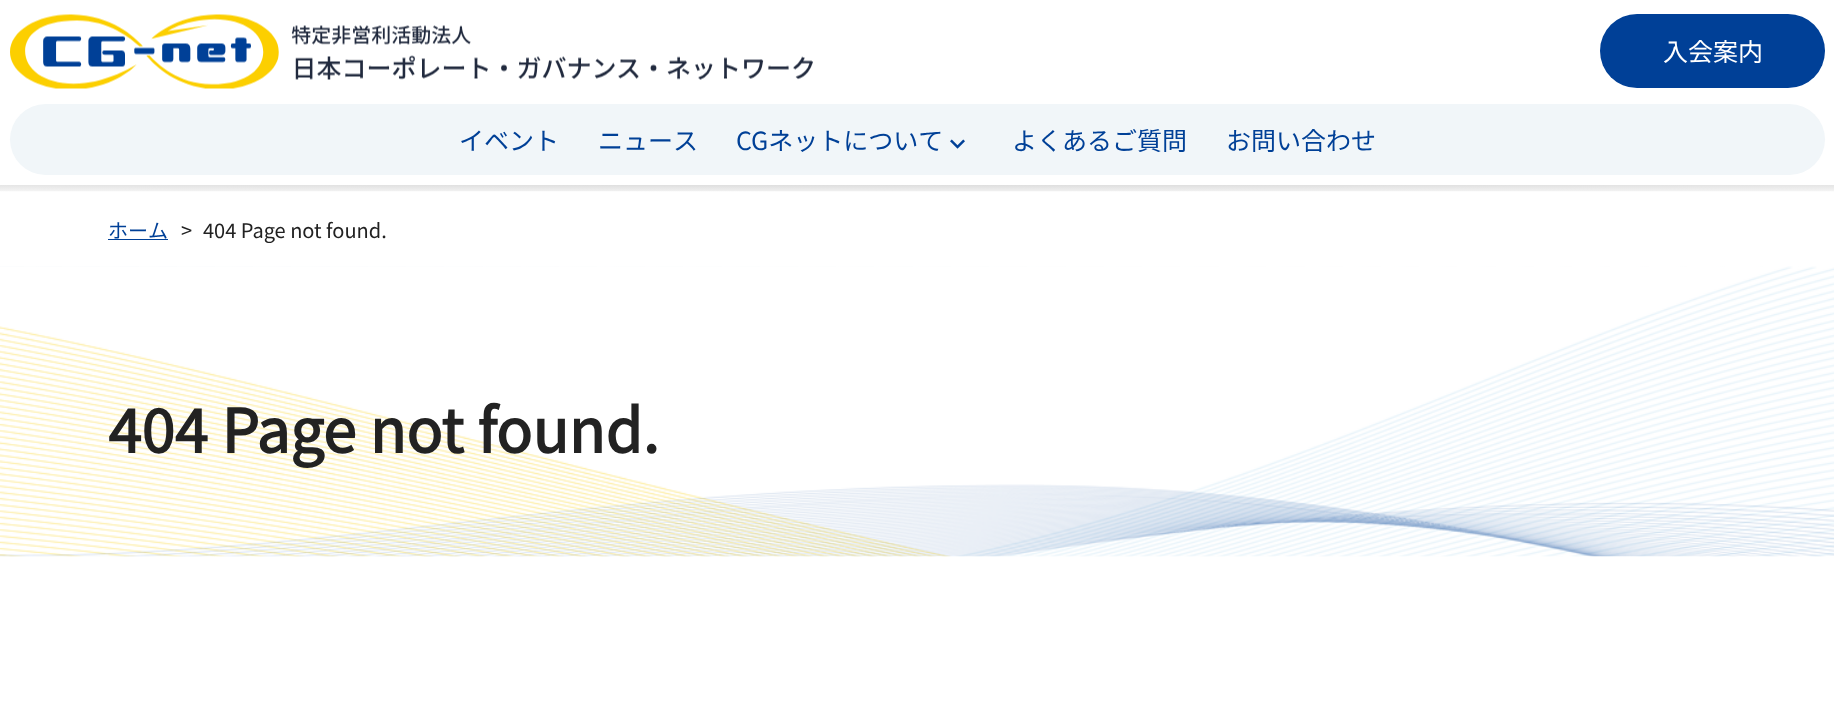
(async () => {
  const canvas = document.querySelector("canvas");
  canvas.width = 1834;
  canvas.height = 720;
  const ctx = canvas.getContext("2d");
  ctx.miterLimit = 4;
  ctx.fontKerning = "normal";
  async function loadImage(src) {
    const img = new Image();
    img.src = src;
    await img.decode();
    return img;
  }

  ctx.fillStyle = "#ffffff";
  ctx.fillRect(0, 0, 1834, 720);
  ctx.drawImage(await loadImage("img/1.png"), 0, 185, 1834, 7);
  ctx.drawImage(await loadImage("img/2.png"), 10, 14, 803, 75);
  ctx.fillStyle = "#004097";
  ctx.beginPath();
  ctx.roundRect(1600, 14, 225, 74, 37);
  ctx.fill();
  ctx.fillStyle = "#f1f6f9";
  ctx.beginPath();
  ctx.roundRect(10, 104, 1815, 71, 35.5);
  ctx.fill();
  ctx.drawImage(await loadImage("img/3.png"), 950, 139, 15, 10);
  ctx.fillStyle = "#004097";
  ctx.fillRect(108, 239, 60, 1);
  ctx.drawImage(await loadImage("img/4.png"), 0, 266, 1834, 291);
  ctx.font = "100 25px Noto Sans JP";
  ctx.fillStyle = "#ffffff";
  ctx.fillText("入会案内", 1663, 61);
  ctx.fillStyle = "#004097";
  for (const [text, x, y] of [
    ["イベント", 459, 150],
    ["ニュース", 598, 150],
    ["CGネットについて", 736, 150],
    ["よくあるご質問", 1012, 150],
    ["お問い合わせ", 1226, 150],
  ]) {
    ctx.fillText(text, x, y);
  }
  ctx.font = "100 20px Noto Sans JP";
  ctx.fillText("ホーム", 108, 238);
  ctx.fillStyle = "#222222";
  ctx.fillText(">", 181, 238);
  ctx.fillText("404 Page not found.", 203, 238);
  ctx.font = "bold 60px Noto Sans JP";
  ctx.fillText("404 Page not found.", 108, 453);
})();
